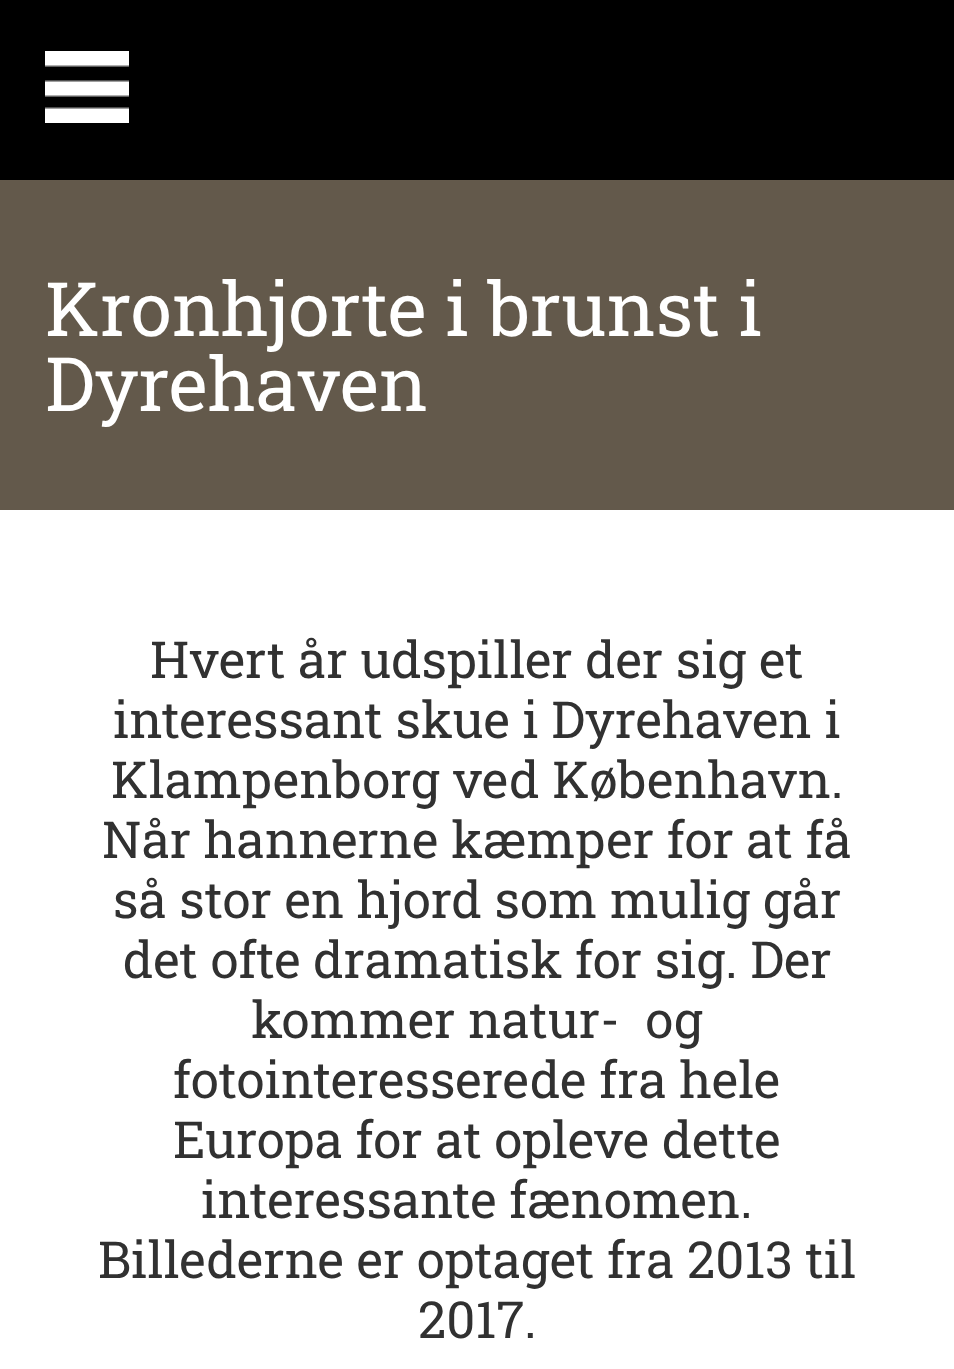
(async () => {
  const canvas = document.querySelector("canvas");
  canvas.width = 954;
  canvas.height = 1369;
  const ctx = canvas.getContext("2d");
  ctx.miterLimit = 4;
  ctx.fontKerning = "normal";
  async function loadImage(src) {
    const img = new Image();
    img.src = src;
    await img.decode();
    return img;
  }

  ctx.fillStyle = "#ffffff";
  ctx.fillRect(0, 0, 954, 1369);
  ctx.fillStyle = "#000000";
  ctx.fillRect(0, 0, 954, 180);
  ctx.drawImage(await loadImage("img/1.png"), 45, 51, 84, 72);
  ctx.fillStyle = "#63594b";
  ctx.fillRect(0, 180, 954, 330);
  ctx.font = "75px Roboto Slab";
  ctx.fillStyle = "#ffffff";
  ctx.fillText("Kronhjorte i brunst i", 45, 336);
  ctx.fillText("Dyrehaven", 45, 411);
  ctx.font = "51px Roboto Slab";
  ctx.fillStyle = "#313131";
  for (const [text, x, y] of [
    ["Hvert år udspiller der sig et", 150, 678],
    ["interessant skue i Dyrehaven i", 113, 738],
    ["Klampenborg ved København.", 111, 798],
    ["Når hannerne kæmper for at få", 102, 858],
    ["så stor en hjord som mulig går", 113, 918],
    ["det ofte dramatisk for sig. Der", 123, 978],
    ["kommer natur-  og", 251, 1038],
    ["fotointeresserede fra hele", 173, 1098],
    ["Europa for at opleve dette", 173, 1158],
    ["interessante fænomen.", 201, 1218],
    ["Billederne er optaget fra 2013 til", 98, 1278],
    ["2017.", 418, 1338],
  ]) {
    ctx.fillText(text, x, y);
  }
})();
